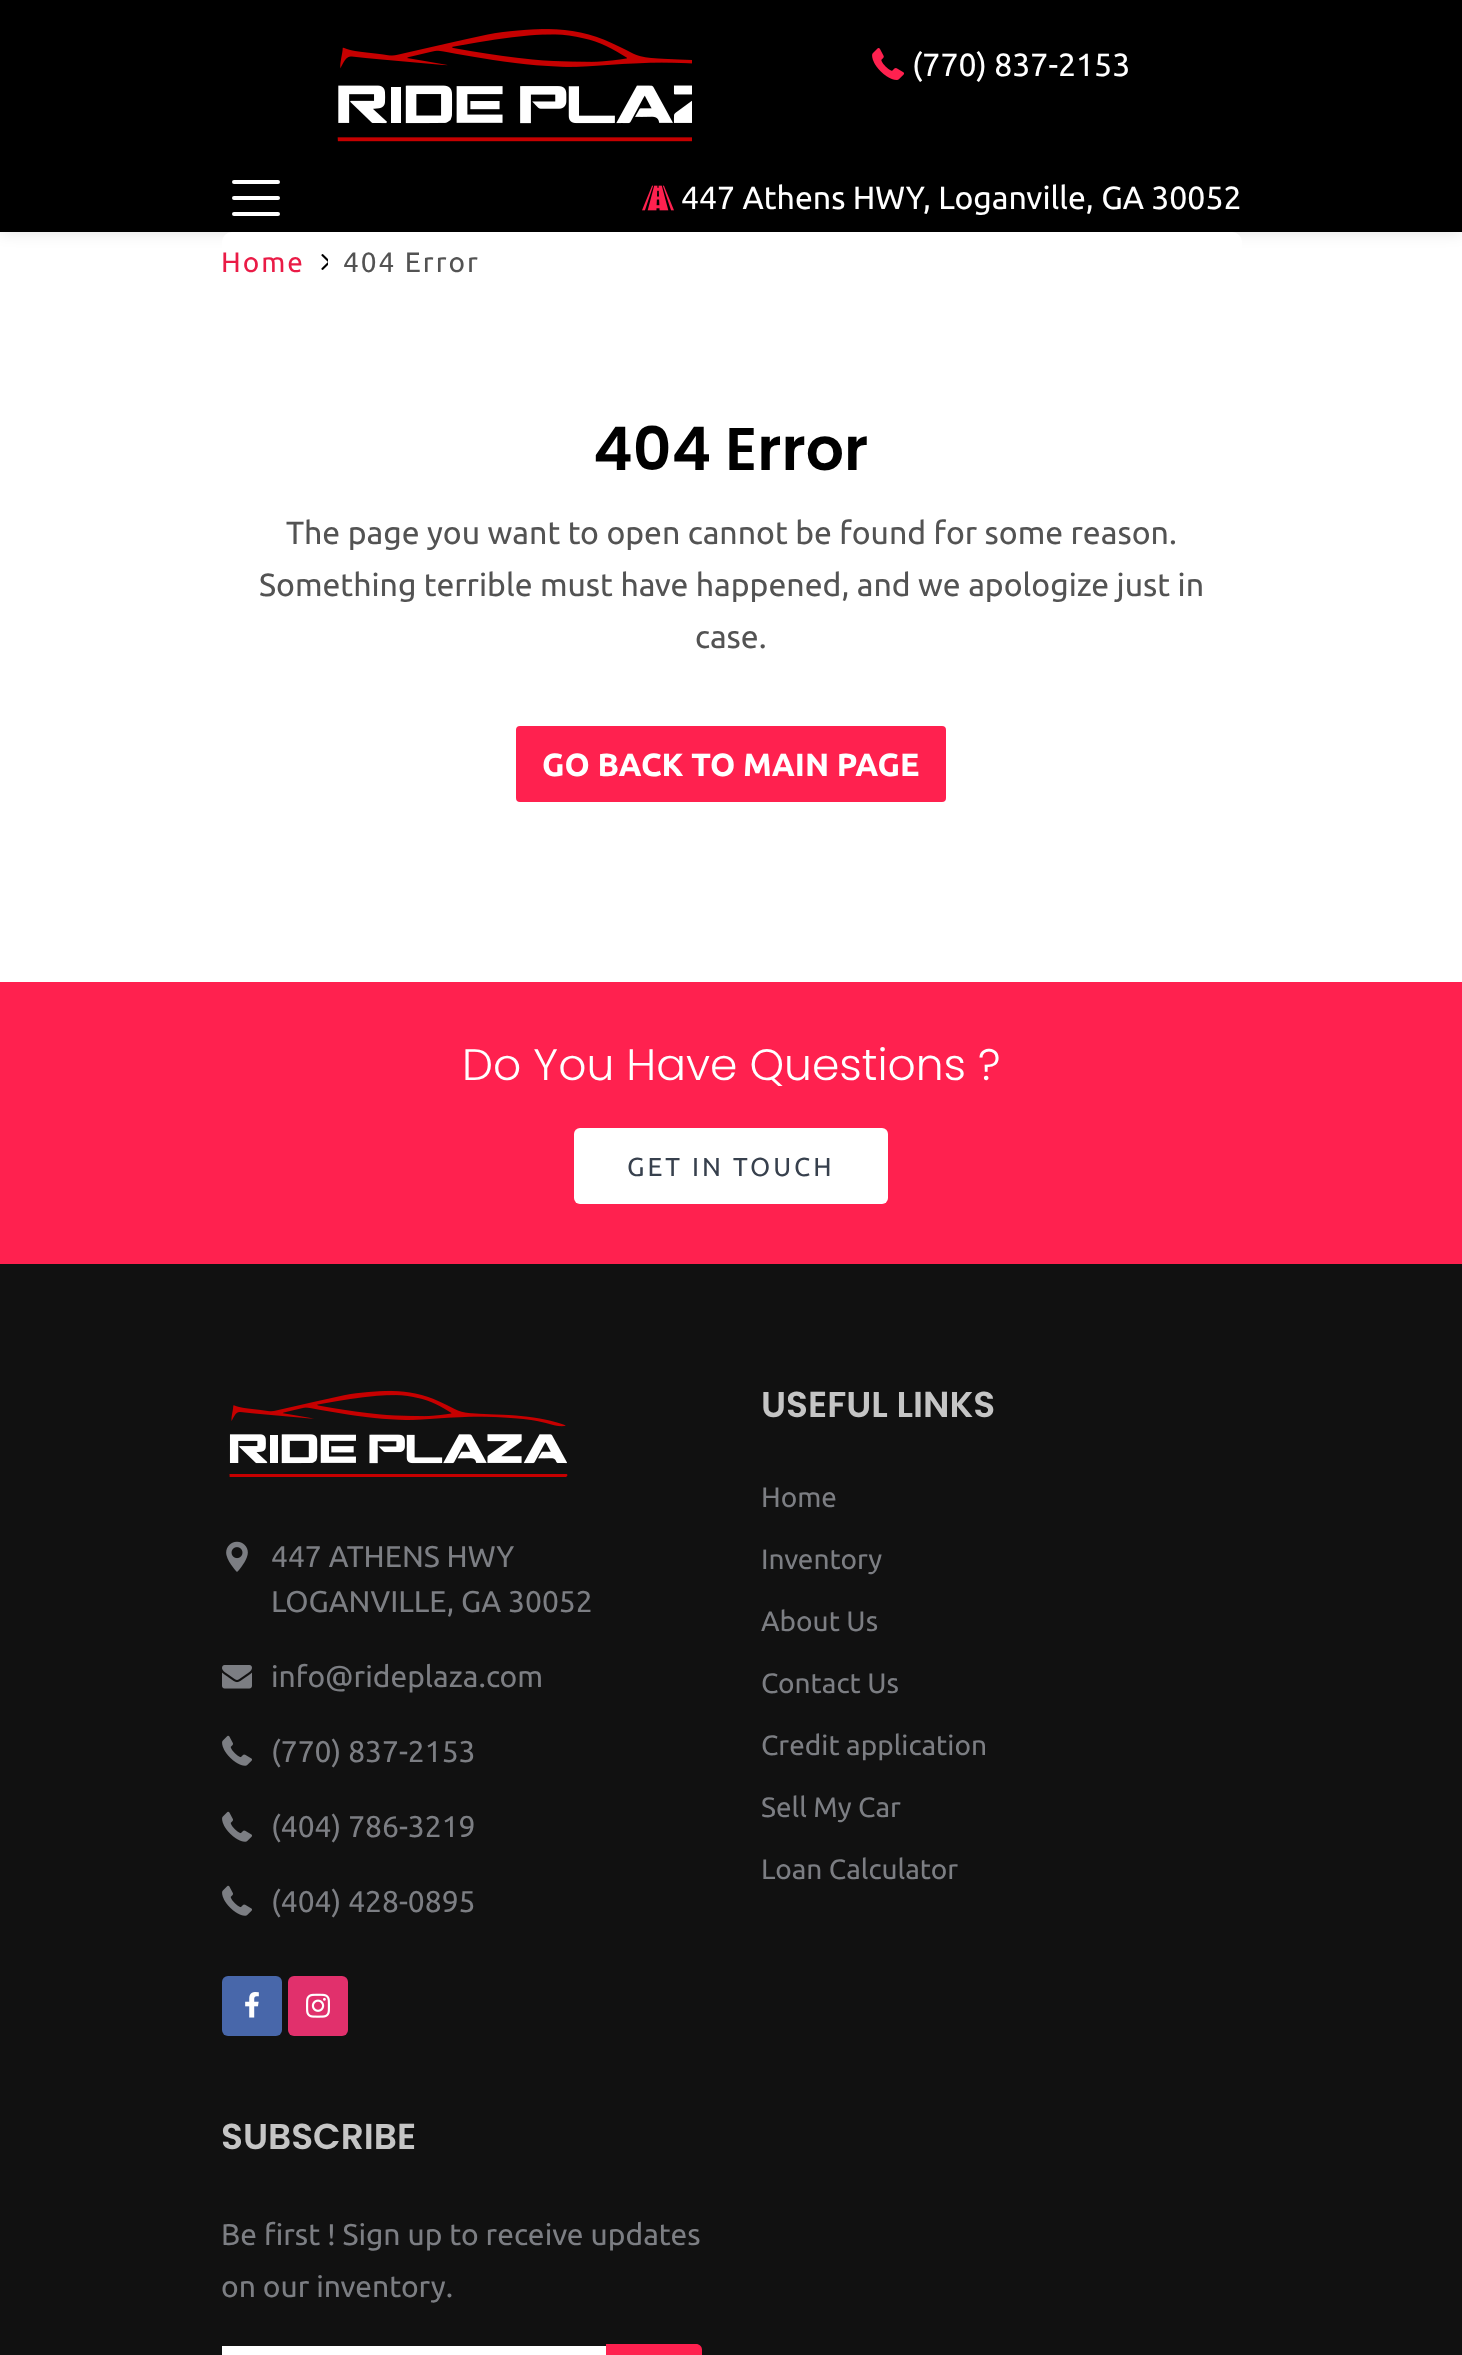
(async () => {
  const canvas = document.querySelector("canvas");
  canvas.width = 1462;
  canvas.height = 2355;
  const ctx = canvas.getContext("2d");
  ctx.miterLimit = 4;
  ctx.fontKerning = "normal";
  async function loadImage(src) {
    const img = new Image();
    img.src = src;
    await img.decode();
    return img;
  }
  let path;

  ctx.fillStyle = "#ffffff";
  ctx.fillRect(0, 0, 1462, 2355);
  ctx.fillStyle = "#000000";
  ctx.fillRect(0, 0, 1462, 162);
  ctx.fillStyle = "rgba(0, 0, 0, 0.12)";
  ctx.filter = "blur(8px)";
  ctx.beginPath();
  ctx.rect(0, 162, 1462, 70);
  ctx.fill();
  ctx.filter = "none";
  ctx.drawImage(await loadImage("img/1.png"), 337, 29, 355, 113);
  ctx.drawImage(await loadImage("img/2.png"), 872, 48, 32, 32);
  ctx.fillStyle = "#000000";
  ctx.fillRect(0, 162, 1462, 70);
  path = new Path2D("M234 182H278M234 198H278M234 214H278");
  ctx.strokeStyle = "#ffffff";
  ctx.lineWidth = 4;
  ctx.lineCap = "round";
  ctx.stroke(path);
  ctx.drawImage(await loadImage("img/3.png"), 642, 185, 32, 26);
  ctx.fillStyle = "#ffffff";
  ctx.beginPath();
  ctx.roundRect(222, 232, 1020, 62, [10, 10, 10, 0]);
  ctx.fill();
  ctx.drawImage(await loadImage("img/4.png"), 321, 254, 7, 16);
  ctx.fillStyle = "#ff214f";
  ctx.beginPath();
  ctx.roundRect(517, 727, 428, 74, 3);
  ctx.fill();
  ctx.strokeStyle = "#ff214f";
  ctx.lineWidth = 2;
  ctx.stroke();
  ctx.fillRect(0, 982, 1462, 282);
  ctx.fillStyle = "#ffffff";
  ctx.beginPath();
  ctx.roundRect(574, 1128, 314, 76, 6);
  ctx.fill();
  ctx.fillStyle = "#111111";
  ctx.fillRect(0, 1264, 1462, 1091);
  ctx.drawImage(await loadImage("img/5.png"), 229, 1390, 339, 88);
  ctx.drawImage(await loadImage("img/6.png"), 226, 1541, 22, 31);
  ctx.drawImage(await loadImage("img/7.png"), 222, 1665, 30, 24);
  ctx.drawImage(await loadImage("img/8.png"), 222, 1735, 30, 31);
  ctx.drawImage(await loadImage("img/8.png"), 222, 1811, 30, 31);
  ctx.drawImage(await loadImage("img/8.png"), 222, 1885, 30, 31);
  ctx.fillStyle = "#4867aa";
  ctx.beginPath();
  ctx.roundRect(222, 1976, 60, 60, 6);
  ctx.fill();
  ctx.drawImage(await loadImage("img/9.png"), 245, 1992, 14, 26);
  ctx.fillStyle = "#e1306c";
  ctx.beginPath();
  ctx.roundRect(288, 1976, 60, 60, 6);
  ctx.fill();
  ctx.drawImage(await loadImage("img/10.png"), 306, 1993, 24, 25);
  ctx.fillStyle = "#ffffff";
  ctx.fillRect(222, 2346, 384, 9);
  ctx.fillStyle = "#ff214f";
  path = new Path2D("M606 2344H696C699.5 2344 702 2346.5 702 2350V2355C702 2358.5 699.5 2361 696 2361H606Z");
  ctx.fill(path);
  ctx.font = "32px Ubuntu";
  ctx.fillStyle = "#ffffff";
  ctx.fillText("(770) 837-2153", 912, 76);
  ctx.fillText("447 Athens HWY, Loganville, GA 30052", 681, 209);
  ctx.letterSpacing = "2px";
  ctx.font = "28px Ubuntu";
  ctx.fillStyle = "#ea1b46";
  ctx.fillText("Home", 221, 272);
  ctx.fillStyle = "#535353";
  ctx.fillText("404 Error", 343, 272);
  ctx.letterSpacing = "0px";
  ctx.font = "600 60px Poppins";
  ctx.fillStyle = "#000000";
  ctx.fillText("404 Error", 593, 470);
  ctx.font = "32px Ubuntu";
  ctx.fillStyle = "#535353";
  for (const [text, x, y] of [
    ["The page you want to open cannot be found for some reason.", 286, 544],
    ["Something terrible must have happened, and we apologize just in", 259, 596],
    ["case.", 695, 648],
  ]) {
    ctx.fillText(text, x, y);
  }
  ctx.font = "bold 32px Ubuntu";
  ctx.fillStyle = "#ffffff";
  ctx.fillText("GO BACK TO MAIN PAGE", 542, 776);
  ctx.font = "300 44px Poppins";
  ctx.fillText("Do You Have Questions ?", 462, 1080);
  ctx.letterSpacing = "3px";
  ctx.font = "26px Ubuntu";
  ctx.fillStyle = "#37404d";
  ctx.fillText("GET IN TOUCH", 627, 1176);
  ctx.letterSpacing = "0px";
  ctx.font = "30px Ubuntu";
  ctx.fillStyle = "#7c7e83";
  for (const [text, x, y] of [
    ["447 ATHENS HWY", 271, 1567],
    ["LOGANVILLE, GA 30052", 271, 1612],
    ["info@rideplaza.com", 271, 1687],
    ["(770) 837-2153", 271, 1762],
    ["(404) 786-3219", 271, 1837],
    ["(404) 428-0895", 271, 1912],
  ]) {
    ctx.fillText(text, x, y);
  }
  ctx.font = "600 36px Poppins";
  ctx.fillStyle = "#c5c5c5";
  ctx.fillText("USEFUL LINKS", 761, 1417);
  ctx.font = "28px Ubuntu";
  ctx.fillStyle = "#7c7e83";
  for (const [text, x, y] of [
    ["Home", 761, 1507],
    ["Inventory", 761, 1569],
    ["About Us", 761, 1631],
    ["Contact Us", 761, 1693],
    ["Credit application", 761, 1755],
    ["Sell My Car", 761, 1817],
    ["Loan Calculator", 761, 1879],
  ]) {
    ctx.fillText(text, x, y);
  }
  ctx.font = "600 36px Poppins";
  ctx.fillStyle = "#c5c5c5";
  ctx.fillText("SUBSCRIBE", 221, 2149);
  ctx.font = "30px Ubuntu";
  ctx.fillStyle = "#7c7e83";
  ctx.fillText("Be first ! Sign up to receive updates", 221, 2245);
  ctx.fillText("on our inventory.", 221, 2297);
})();
